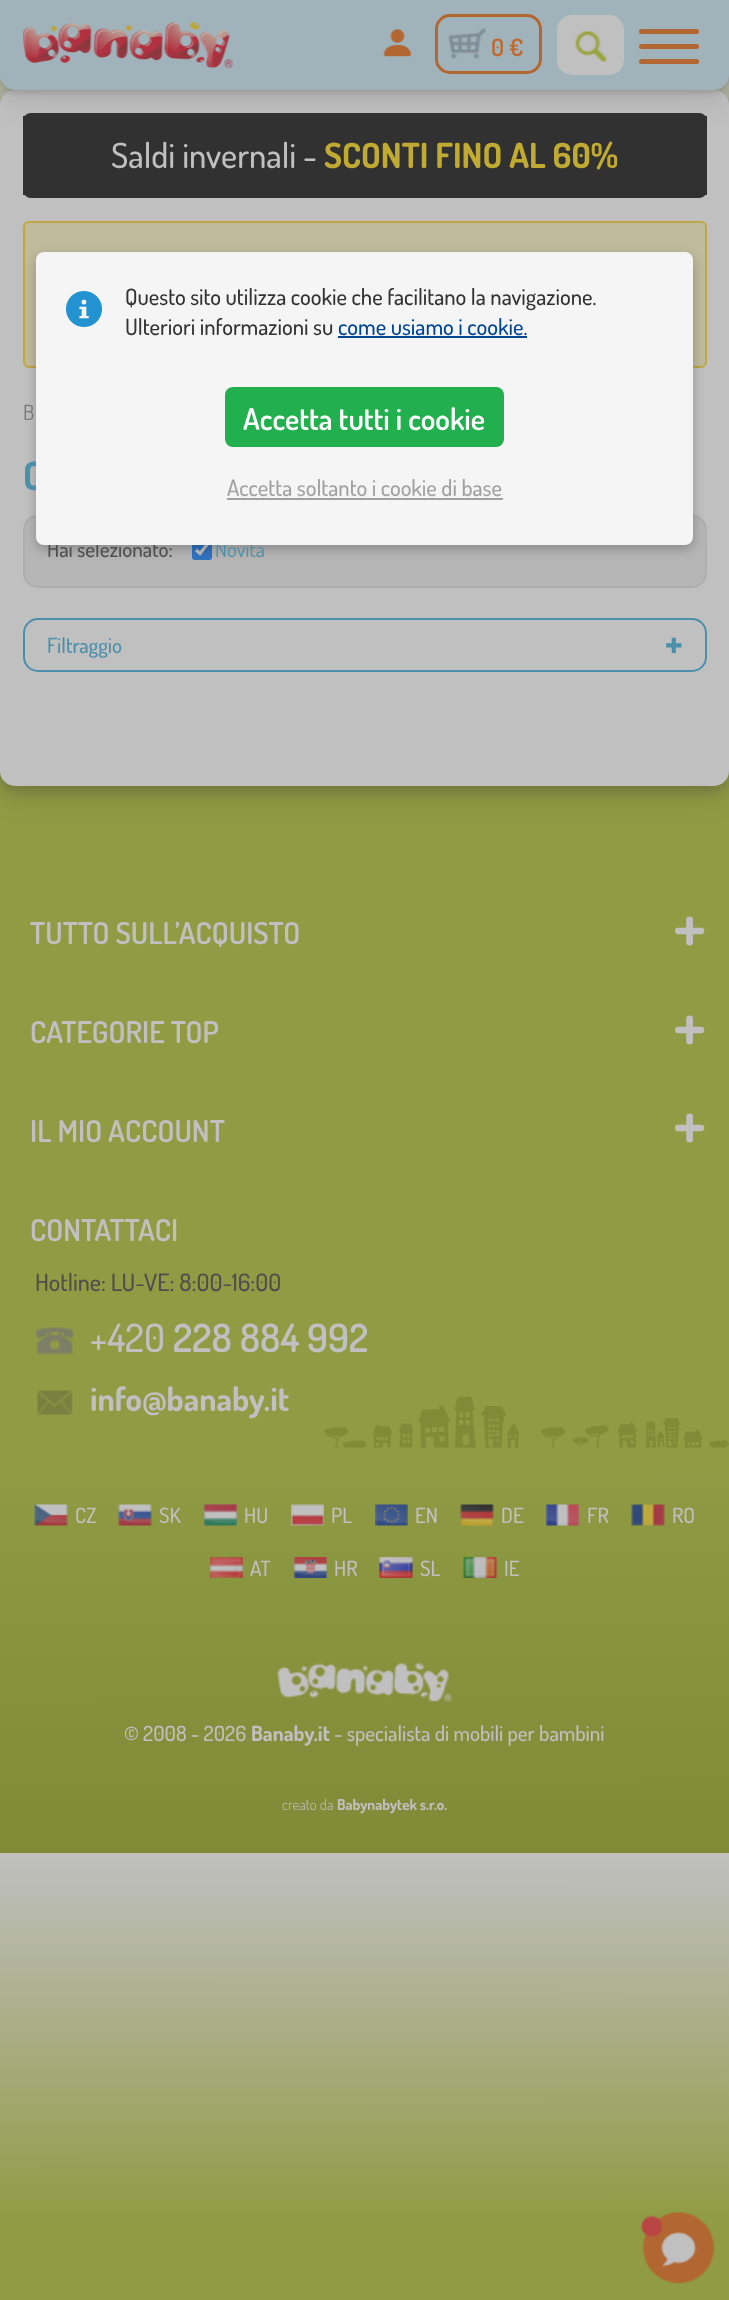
(async () => {
  const canvas = document.querySelector("canvas");
  canvas.width = 729;
  canvas.height = 2300;
  const ctx = canvas.getContext("2d");
  ctx.miterLimit = 4;
  ctx.fontKerning = "normal";
  async function loadImage(src) {
    const img = new Image();
    img.src = src;
    await img.decode();
    return img;
  }
  let gradient, path;

  ctx.fillStyle = "#ffffff";
  ctx.fillRect(0, 0, 729, 2300);
  gradient = ctx.createLinearGradient(364, 0, 365, 1853);
  gradient.addColorStop(0, "#c0c0c0");
  gradient.addColorStop(0.2, "#909b44");
  ctx.fillStyle = gradient;
  ctx.fillRect(0, 75, 729, 1373);
  gradient = ctx.createLinearGradient(364, 1853, 365, 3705);
  gradient.addColorStop(0, "#c0c0c0");
  gradient.addColorStop(0.2, "#909b44");
  ctx.fillStyle = gradient;
  ctx.fillRect(0, 1853, 729, 447);
  ctx.fillStyle = "rgba(49, 49, 49, 0.19)";
  ctx.filter = "blur(15px)";
  ctx.beginPath();
  ctx.roundRect(0, 99, 729, 696, 15);
  ctx.fill();
  ctx.filter = "none";
  ctx.fillStyle = "rgba(49, 49, 49, 0.2)";
  ctx.filter = "blur(6px)";
  ctx.beginPath();
  ctx.roundRect(0, 96, 729, 696, 15);
  ctx.fill();
  ctx.filter = "none";
  ctx.fillStyle = "#c0c0c0";
  ctx.beginPath();
  ctx.roundRect(0, 90, 729, 696, 15);
  ctx.fill();
  ctx.fillStyle = "#313131";
  ctx.beginPath();
  ctx.roundRect(23, 113, 684, 85, 8);
  ctx.fill();
  ctx.fillRect(23, 116, 684, 79);
  ctx.fillStyle = "rgba(49, 49, 49, 0.15)";
  ctx.filter = "blur(15px)";
  ctx.beginPath();
  ctx.roundRect(0, 8, 729, 90, 15);
  ctx.fill();
  ctx.filter = "none";
  ctx.fillStyle = "rgba(49, 49, 49, 0.21)";
  ctx.filter = "blur(3px)";
  ctx.beginPath();
  ctx.roundRect(0, 2, 729, 90, 15);
  ctx.fill();
  ctx.filter = "none";
  ctx.fillStyle = "#a0b3bb";
  ctx.beginPath();
  ctx.roundRect(0, 0, 729, 90, [0, 0, 15, 15]);
  ctx.fill();
  ctx.drawImage(await loadImage("img/1.png"), 23, 22, 210, 46);
  ctx.drawImage(await loadImage("img/2.png"), 383, 29, 29, 28);
  ctx.drawImage(await loadImage("img/3.png"), 448, 28, 39, 31);
  ctx.beginPath();
  ctx.roundRect(436.5, 15.5, 104, 57, 13.5);
  ctx.strokeStyle = "#b26631";
  ctx.lineWidth = 3;
  ctx.stroke();
  ctx.fillStyle = "#c0c0c0";
  ctx.beginPath();
  ctx.roundRect(557, 15, 67, 60, 15);
  ctx.fill();
  ctx.drawImage(await loadImage("img/4.png"), 574, 30, 33, 32);
  ctx.fillStyle = "#b26631";
  ctx.beginPath();
  ctx.roundRect(639, 29, 60, 5, 2.5);
  ctx.fill();
  ctx.beginPath();
  ctx.roundRect(639, 44, 60, 5, 2.5);
  ctx.fill();
  ctx.beginPath();
  ctx.roundRect(639, 59, 60, 5, 2.5);
  ctx.fill();
  ctx.fillStyle = "#c0bb9c";
  ctx.beginPath();
  ctx.roundRect(24, 222, 682, 145, 5);
  ctx.fill();
  ctx.strokeStyle = "#c0a745";
  ctx.lineWidth = 2;
  ctx.stroke();
  ctx.fillStyle = "#b6b6b6";
  ctx.beginPath();
  ctx.roundRect(24, 516, 682, 71, 14);
  ctx.fill();
  ctx.strokeStyle = "#aeaeae";
  ctx.stroke();
  ctx.fillStyle = "#3173c0";
  ctx.beginPath();
  ctx.roundRect(192, 540, 20, 20, 3);
  ctx.fill();
  path = new Path2D("M196 550L200 553.5L207.5 544");
  ctx.strokeStyle = "#c0c0c0";
  ctx.lineWidth = 3.1;
  ctx.stroke(path);
  ctx.beginPath();
  ctx.roundRect(24, 619, 682, 52, 14);
  ctx.strokeStyle = "#4b8faa";
  ctx.lineWidth = 2;
  ctx.stroke();
  ctx.fillStyle = "rgba(0, 0, 0, 0.24)";
  ctx.filter = "blur(6px)";
  ctx.beginPath();
  ctx.roundRect(36, 257, 657, 292, 8);
  ctx.fill();
  ctx.filter = "none";
  ctx.drawImage(await loadImage("img/6.png"), 35, 1327, 39, 28);
  ctx.drawImage(await loadImage("img/7.png"), 37, 1390, 36, 25);
  ctx.drawImage(await loadImage("img/8.png"), 324, 1396, 405, 52);
  gradient = ctx.createLinearGradient(364, 1448, 365, 1853);
  gradient.addColorStop(0, "#909b44");
  gradient.addColorStop(1, "#808a37");
  ctx.fillStyle = gradient;
  ctx.fillRect(0, 1448, 729, 405);
  ctx.drawImage(await loadImage("img/9.png"), 34, 1504, 34, 22);
  ctx.drawImage(await loadImage("img/10.png"), 118, 1504, 34, 22);
  ctx.drawImage(await loadImage("img/11.png"), 204, 1504, 33, 22);
  ctx.drawImage(await loadImage("img/12.png"), 291, 1504, 33, 22);
  ctx.drawImage(await loadImage("img/13.png"), 375, 1504, 33, 22);
  ctx.drawImage(await loadImage("img/14.png"), 460, 1504, 34, 22);
  ctx.drawImage(await loadImage("img/15.png"), 546, 1504, 33, 22);
  ctx.drawImage(await loadImage("img/16.png"), 631, 1504, 34, 22);
  ctx.drawImage(await loadImage("img/17.png"), 210, 1557, 33, 21);
  ctx.drawImage(await loadImage("img/18.png"), 294, 1557, 33, 21);
  ctx.drawImage(await loadImage("img/19.png"), 379, 1557, 34, 21);
  ctx.drawImage(await loadImage("img/20.png"), 463, 1557, 34, 21);
  ctx.drawImage(await loadImage("img/21.png"), 277, 1663, 175, 39);
  ctx.drawImage(await loadImage("img/22.png"), 640, 2212, 75, 72);
  ctx.font = "600 24px Dosis";
  ctx.fillStyle = "#c06a31";
  ctx.fillText("0 €", 491, 56);
  ctx.font = "500 34.5px Dosis";
  ctx.fillStyle = "#c0c0c0";
  ctx.fillText("Saldi invernali -", 111, 168);
  ctx.font = "bold 34.5px Dosis";
  ctx.fillStyle = "#c0aa31";
  ctx.fillText("SCONTI FINO AL 60%", 324, 168);
  ctx.font = "21px Dosis";
  ctx.fillStyle = "#787878";
  ctx.fillText("B", 23, 420);
  ctx.font = "bold 39px Dosis";
  ctx.fillStyle = "#4b8faa";
  ctx.fillText("C", 23, 490);
  ctx.font = "500 21px Dosis";
  ctx.fillStyle = "#4e4e4e";
  ctx.fillText("Hai selezionato:", 47, 557);
  ctx.font = "21px Dosis";
  ctx.fillStyle = "#4b8faa";
  ctx.fillText("Novità", 215, 557);
  ctx.font = "500 21px Dosis";
  ctx.fillText("Filtraggio", 47, 653);
  ctx.font = "21px DejaVu Sans";
  ctx.fillText("✚", 665, 653);
  ctx.fillStyle = "#f5f5f5";
  ctx.beginPath();
  ctx.roundRect(36, 252, 657, 293, 8);
  ctx.fill();
  ctx.drawImage(await loadImage("img/5.png"), 66, 291, 36, 36);
  ctx.font = "500 22.5px Dosis";
  ctx.fillStyle = "#333333";
  ctx.fillText("Questo sito utilizza cookie che facilitano la navigazione.", 125, 305);
  ctx.fillText("Ulteriori informazioni su", 125, 335);
  ctx.fillStyle = "#004494";
  ctx.fillText("come usiamo i cookie.", 338, 335);
  ctx.fillRect(338, 336, 189, 2);
  ctx.fillStyle = "#22af4d";
  ctx.beginPath();
  ctx.roundRect(225, 387, 279, 60, 8);
  ctx.fill();
  ctx.font = "600 30px Dosis";
  ctx.fillStyle = "#ffffff";
  ctx.fillText("Accetta tutti i cookie", 243, 430);
  ctx.font = "500 22.5px Dosis";
  ctx.fillStyle = "#a1a1a1";
  ctx.fillText("Accetta soltanto i cookie di base", 227, 496);
  ctx.fillRect(227, 498, 276, 2);
  ctx.font = "600 30px Dosis";
  ctx.fillStyle = "#c0c0c0";
  ctx.fillText("TUTTO SULL’ACQUISTO", 30, 944);
  ctx.font = "600 75px Dosis";
  ctx.fillText("+", 673, 949);
  ctx.font = "600 30px Dosis";
  ctx.fillText("CATEGORIE TOP", 30, 1043);
  ctx.font = "600 75px Dosis";
  ctx.fillText("+", 673, 1048);
  ctx.font = "600 30px Dosis";
  ctx.fillText("IL MIO ACCOUNT", 30, 1142);
  ctx.font = "600 75px Dosis";
  ctx.fillText("+", 673, 1146);
  ctx.font = "600 30px Dosis";
  ctx.fillText("CONTATTACI", 30, 1241);
  ctx.font = "500 24px Dosis";
  ctx.fillStyle = "#4e4e4e";
  ctx.fillText("Hotline: LU-VE: 8:00-16:00", 35, 1291);
  ctx.font = "500 39px Dosis";
  ctx.fillStyle = "#c0c0c0";
  ctx.fillText("+420", 90, 1352);
  ctx.font = "600 39px Dosis";
  ctx.fillText("228 884 992", 173, 1352);
  ctx.font = "bold 33px Dosis";
  ctx.fillText("info@banaby.it", 90, 1411);
  ctx.font = "500 21px Dosis";
  for (const [text, x, y] of [
    ["CZ", 75, 1523],
    ["SK", 159, 1523],
    ["HU", 244, 1523],
    ["PL", 331, 1523],
    ["EN", 415, 1523],
    ["DE", 501, 1523],
    ["FR", 587, 1523],
    ["RO", 672, 1523],
    ["AT", 250, 1576],
    ["HR", 334, 1576],
    ["SL", 420, 1576],
    ["IE", 504, 1576],
    ["© 2008 - 2026", 124, 1741],
  ]) {
    ctx.fillText(text, x, y);
  }
  ctx.font = "bold 21px Dosis";
  ctx.fillText("Banaby.it", 251, 1741);
  ctx.font = "500 21px Dosis";
  ctx.fillText("- specialista di mobili per bambini", 334, 1741);
  ctx.font = "300 15px Dosis";
  ctx.fillText("creato da", 282, 1810);
  ctx.font = "bold 15px Dosis";
  ctx.fillText("Babynabytek s.r.o.", 337, 1810);
})();
